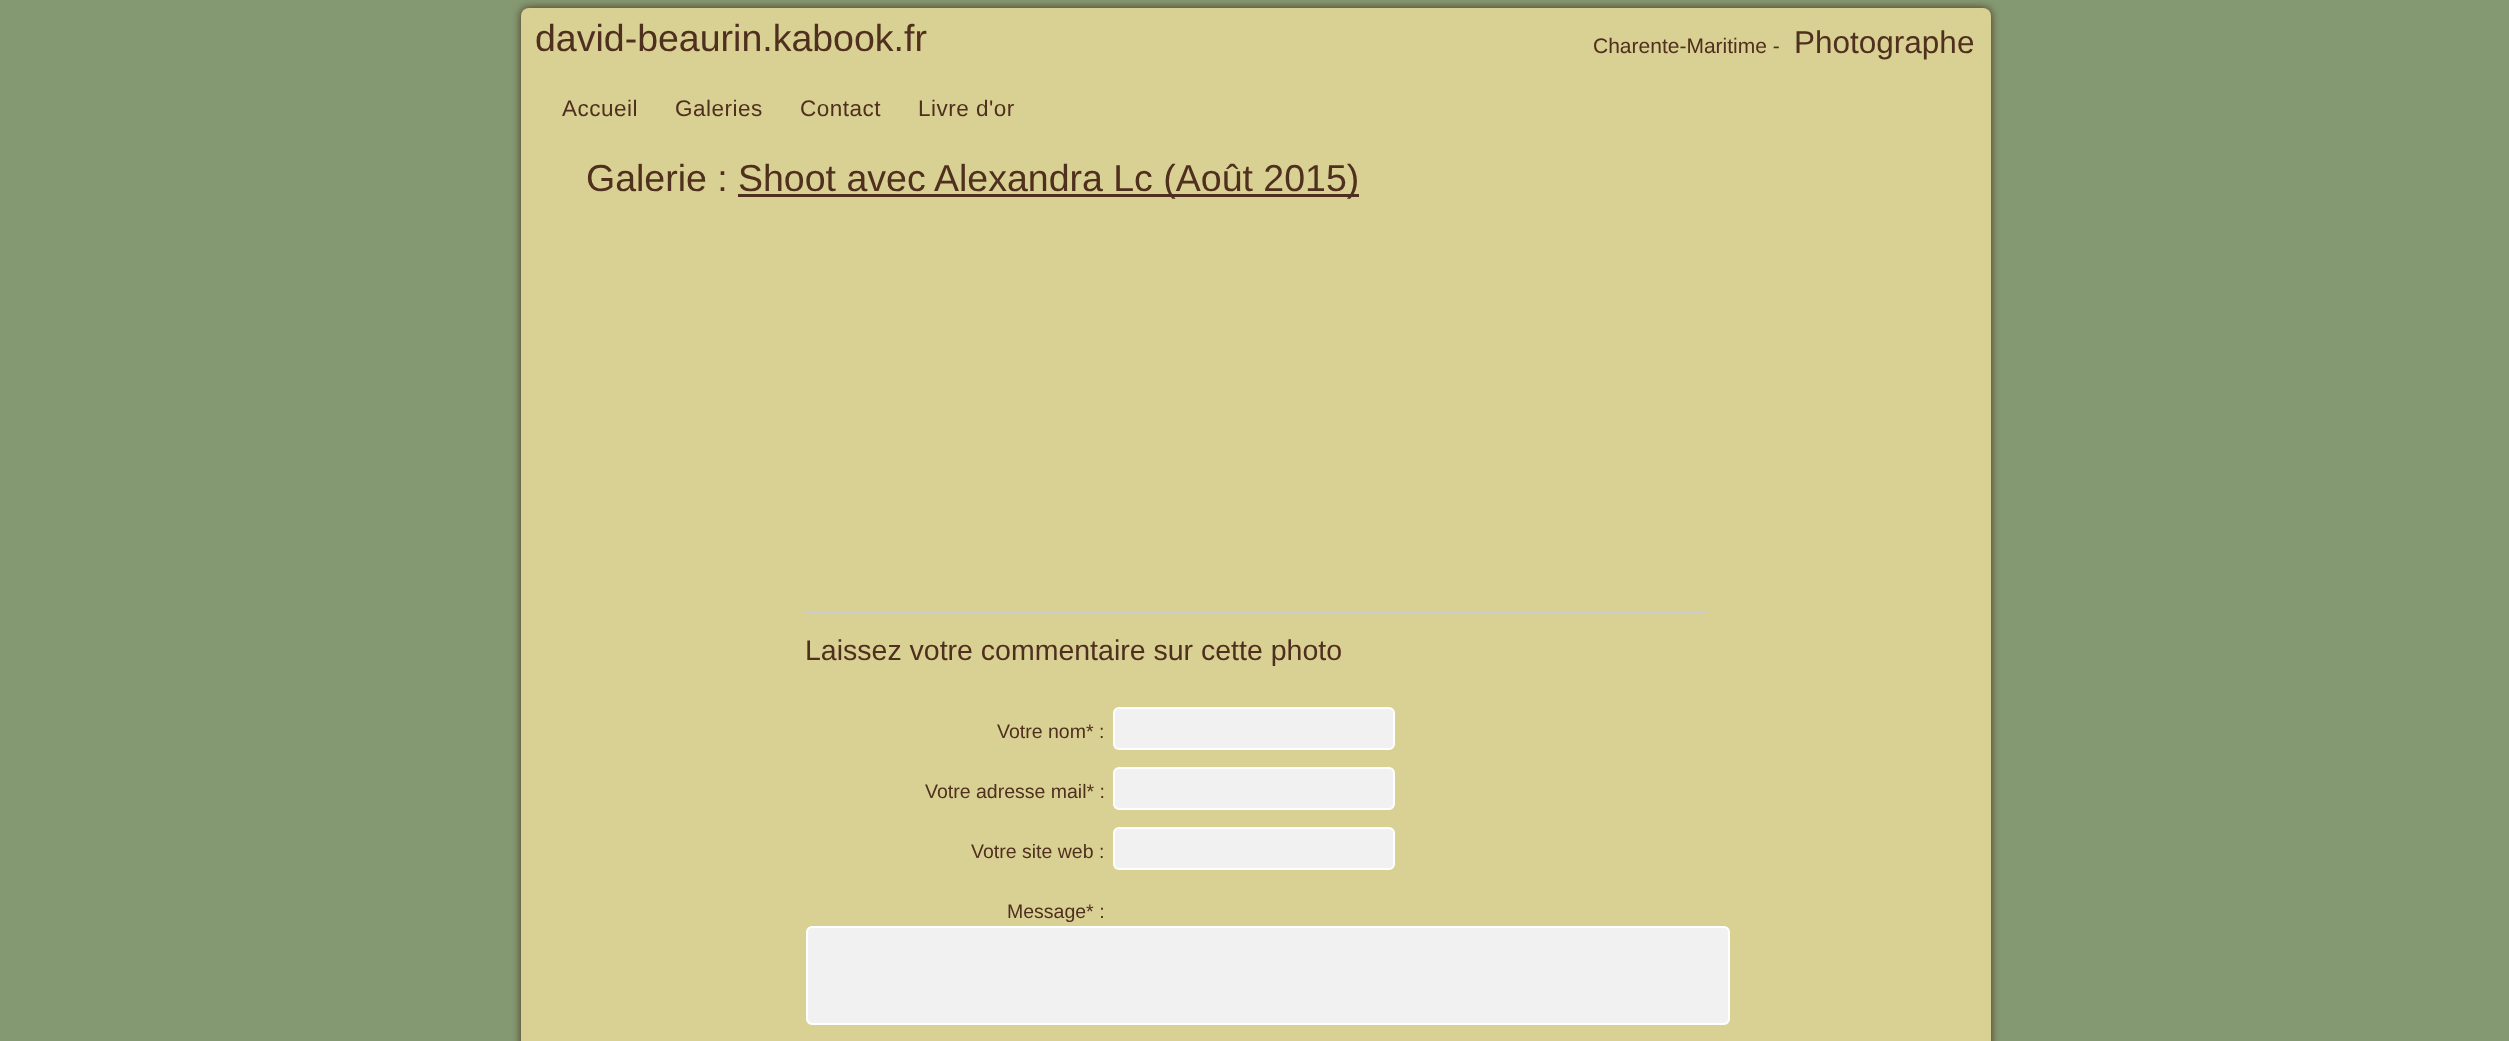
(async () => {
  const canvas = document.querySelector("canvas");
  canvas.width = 2509;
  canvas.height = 1041;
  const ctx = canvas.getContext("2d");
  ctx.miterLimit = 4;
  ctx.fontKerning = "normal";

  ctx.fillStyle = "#849972";
  ctx.fillRect(0, 0, 2509, 1041);
  ctx.fillStyle = "#4f2f1d";
  ctx.filter = "blur(4px)";
  ctx.beginPath();
  ctx.roundRect(521, 8, 1470, 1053, 8);
  ctx.fill();
  ctx.filter = "none";
  ctx.fillStyle = "#d9d094";
  ctx.beginPath();
  ctx.roundRect(521, 8, 1470, 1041, 8);
  ctx.fill();
  ctx.fillStyle = "#4f2f1d";
  ctx.fillRect(738, 194, 621, 3);
  ctx.fillStyle = "#cccccc";
  ctx.fillRect(806, 611, 900, 2);
  ctx.fillStyle = "#f1f1f2";
  ctx.beginPath();
  ctx.roundRect(1114, 708, 280, 41, 5);
  ctx.fill();
  ctx.strokeStyle = "#ffffff";
  ctx.lineWidth = 2;
  ctx.stroke();
  ctx.beginPath();
  ctx.roundRect(1114, 768, 280, 41, 5);
  ctx.fill();
  ctx.stroke();
  ctx.beginPath();
  ctx.roundRect(1114, 828, 280, 41, 5);
  ctx.fill();
  ctx.stroke();
  ctx.beginPath();
  ctx.roundRect(807, 927, 922, 97, 5);
  ctx.fill();
  ctx.stroke();
  ctx.font = "37.5px Liberation Sans";
  ctx.fillStyle = "#4f2f1d";
  ctx.fillText("david-beaurin.kabook.fr", 535, 51);
  ctx.font = "21px Liberation Sans";
  ctx.fillText("Charente-Maritime -", 1593, 53);
  ctx.font = "31.5px Liberation Sans";
  ctx.fillText("Photographe", 1794, 53);
  ctx.letterSpacing = "0.5px";
  ctx.font = "22.5px Liberation Sans";
  for (const [text, x, y] of [
    ["Accueil", 562, 116],
    ["Galeries", 675, 116],
    ["Contact", 800, 116],
    ["Livre d'or", 918, 116],
  ]) {
    ctx.fillText(text, x, y);
  }
  ctx.letterSpacing = "0px";
  ctx.font = "37.5px Liberation Sans";
  ctx.fillText("Galerie :", 586, 191);
  ctx.fillText("Shoot avec Alexandra Lc (Août 2015)", 738, 191);
  ctx.font = "28.5px Liberation Sans";
  ctx.fillText("Laissez votre commentaire sur cette photo", 805, 660);
  ctx.font = "19.5px Liberation Sans";
  for (const [text, x, y] of [
    ["Votre nom* :", 997, 738],
    ["Votre adresse mail* :", 925, 798],
    ["Votre site web :", 971, 858],
    ["Message* :", 1007, 918],
  ]) {
    ctx.fillText(text, x, y);
  }
})();
